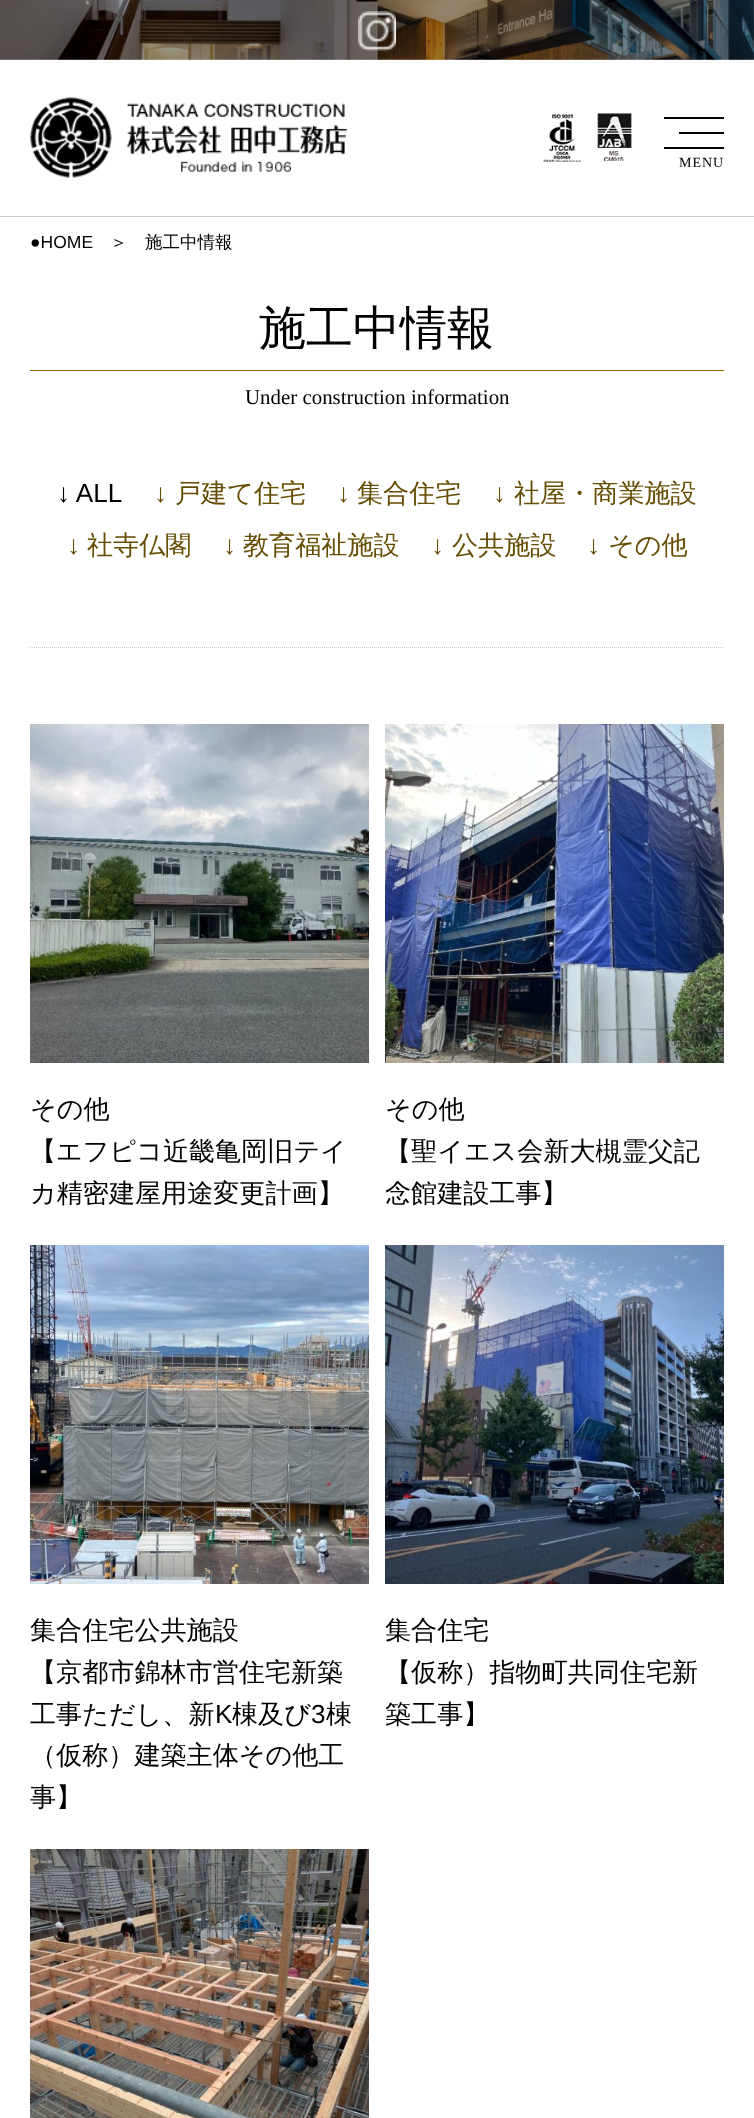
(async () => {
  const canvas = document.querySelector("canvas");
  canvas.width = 754;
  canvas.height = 2118;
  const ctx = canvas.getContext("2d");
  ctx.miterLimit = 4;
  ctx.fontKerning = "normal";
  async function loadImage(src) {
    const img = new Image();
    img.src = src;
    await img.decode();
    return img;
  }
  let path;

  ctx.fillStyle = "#ffffff";
  ctx.fillRect(0, 0, 754, 2118);
  ctx.drawImage(await loadImage("img/1.png"), 0, 0, 377, 60);
  ctx.drawImage(await loadImage("img/2.png"), 377, 0, 377, 60);
  ctx.drawImage(await loadImage("img/3.png"), 358, 11, 38, 40);
  ctx.fillStyle = "#cccccc";
  ctx.fillRect(0, 216, 754, 1);
  ctx.drawImage(await loadImage("img/4.png"), 30, 97, 317, 81);
  ctx.drawImage(await loadImage("img/5.png"), 543, 114, 38, 48);
  ctx.drawImage(await loadImage("img/6.png"), 597, 113, 35, 48);
  for (const [x, y, w, h, color] of [
    [664, 117, 60, 2, "#000000"],
    [679, 132, 45, 2, "#000000"],
    [664, 147, 60, 2, "#000000"],
    [30, 370, 694, 1, "#8c6900"],
  ]) {
    ctx.fillStyle = color;
    ctx.fillRect(x, y, w, h);
  }
  path = new Path2D("M30 647.5H724");
  ctx.strokeStyle = "#cccccc";
  ctx.setLineDash([1, 1]);
  ctx.stroke(path);
  ctx.drawImage(await loadImage("img/7.png"), 30, 724, 339, 339);
  ctx.drawImage(await loadImage("img/8.png"), 385, 724, 339, 339);
  ctx.drawImage(await loadImage("img/9.png"), 30, 1245, 339, 339);
  ctx.drawImage(await loadImage("img/10.png"), 385, 1245, 339, 339);
  ctx.drawImage(await loadImage("img/11.png"), 30, 1849, 339, 269);
  ctx.letterSpacing = "1px";
  ctx.font = "14px Liberation Serif";
  ctx.fillStyle = "#000000";
  ctx.fillText("MENU", 679, 167);
  ctx.letterSpacing = "0px";
  ctx.font = "17.5px Liberation Sans";
  ctx.fillText("●HOME", 30, 248);
  ctx.font = "500 17.5px WenQuanYi Zen Hei";
  ctx.fillText("＞", 110, 248);
  ctx.fillText("施工中情報", 145, 248);
  ctx.font = "500 47px WenQuanYi Zen Hei";
  ctx.fillText("施工中情報", 259, 344);
  ctx.font = "20.9px Liberation Serif";
  ctx.fillText("Under construction information", 245, 404);
  ctx.font = "26.1px Liberation Sans";
  ctx.fillText("↓ ALL", 57, 502);
  ctx.fillStyle = "#664c00";
  ctx.fillText("↓", 154, 502);
  ctx.font = "500 26.1px WenQuanYi Zen Hei";
  ctx.fillText("戸建て住宅", 175, 502);
  ctx.font = "26.1px Liberation Sans";
  ctx.fillText("↓", 337, 502);
  ctx.font = "500 26.1px WenQuanYi Zen Hei";
  ctx.fillText("集合住宅", 357, 502);
  ctx.font = "26.1px Liberation Sans";
  ctx.fillText("↓", 493, 502);
  ctx.font = "500 26.1px WenQuanYi Zen Hei";
  ctx.fillText("社屋・商業施設", 514, 502);
  ctx.font = "26.1px Liberation Sans";
  ctx.fillText("↓", 67, 554);
  ctx.font = "500 26.1px WenQuanYi Zen Hei";
  ctx.fillText("社寺仏閣", 87, 554);
  ctx.font = "26.1px Liberation Sans";
  ctx.fillText("↓", 223, 554);
  ctx.font = "500 26.1px WenQuanYi Zen Hei";
  ctx.fillText("教育福祉施設", 243, 554);
  ctx.font = "26.1px Liberation Sans";
  ctx.fillText("↓", 431, 554);
  ctx.font = "500 26.1px WenQuanYi Zen Hei";
  ctx.fillText("公共施設", 452, 554);
  ctx.font = "26.1px Liberation Sans";
  ctx.fillText("↓", 587, 554);
  ctx.font = "500 26.1px WenQuanYi Zen Hei";
  ctx.fillText("その他", 608, 554);
  ctx.fillStyle = "#000000";
  for (const [text, x, y] of [
    ["その他", 30, 1118],
    ["【エフピコ近畿亀岡旧テイ", 30, 1160],
    ["カ精密建屋用途変更計画】", 30, 1202],
    ["その他", 385, 1118],
    ["【聖イエス会新大槻霊父記", 385, 1160],
    ["念館建設工事】", 385, 1202],
    ["集合住宅公共施設", 30, 1639],
    ["【京都市錦林市営住宅新築", 30, 1681],
    ["工事ただし、新", 30, 1723],
  ]) {
    ctx.fillText(text, x, y);
  }
  ctx.font = "26.1px Liberation Sans";
  ctx.fillText("K", 215, 1723);
  ctx.font = "500 26.1px WenQuanYi Zen Hei";
  ctx.fillText("棟及び", 232, 1723);
  ctx.font = "26.1px Liberation Sans";
  ctx.fillText("3", 311, 1723);
  ctx.font = "500 26.1px WenQuanYi Zen Hei";
  for (const [text, x, y] of [
    ["棟", 326, 1723],
    ["（仮称）建築主体その他工", 30, 1764],
    ["事】", 30, 1806],
    ["集合住宅", 385, 1639],
    ["【仮称）指物町共同住宅新", 385, 1681],
    ["築工事】", 385, 1723],
  ]) {
    ctx.fillText(text, x, y);
  }
})();
